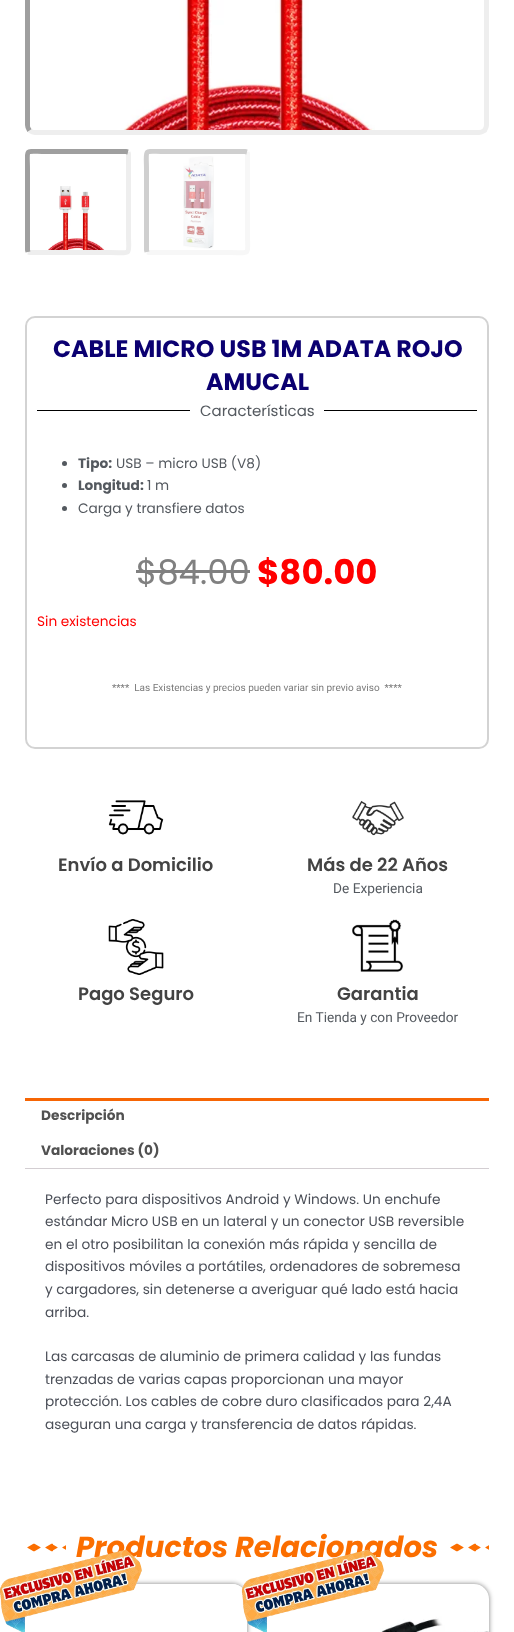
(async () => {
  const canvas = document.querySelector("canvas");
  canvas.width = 514;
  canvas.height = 1632;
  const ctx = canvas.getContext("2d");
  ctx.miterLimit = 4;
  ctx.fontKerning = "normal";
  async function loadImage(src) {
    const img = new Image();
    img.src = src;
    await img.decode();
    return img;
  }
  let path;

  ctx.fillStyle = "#ffffff";
  ctx.fillRect(0, 0, 514, 1632);
  path = new Path2D("M484.5-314.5C485.5-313 486.5-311 486.5-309V125C486.5 127 485.5 129 484.5 130.5C483 131.5 481 132.5 479 132.5H35C33 132.5 31 131.5 29.5 130.5");
  ctx.strokeStyle = "#eeeeee";
  ctx.lineWidth = 5;
  ctx.stroke(path);
  path = new Path2D("M29.5 130.5C28.5 129 27.5 127 27.5 125V-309C27.5-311 28.5-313 29.5-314.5C31-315.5 33-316.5 35-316.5H479C481-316.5 483-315.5 484.5-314.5");
  ctx.strokeStyle = "#9f9f9f";
  ctx.stroke(path);
  ctx.drawImage(await loadImage("img/1.png"), 30, 0, 345, 130);
  path = new Path2D("M128 152L128.5 154V234C128.5 256.5 132.5 252.5 110 252.5H30L28 252");
  ctx.strokeStyle = "#eeeeee";
  ctx.stroke(path);
  ctx.save();
  ctx.beginPath();
  ctx.rect(25, 149, 464, 119);
  ctx.clip();
  path = new Path2D("M28 252L27.5 250V170C27.5 147.5 23.5 151.5 46 151.5H126L128 152");
  ctx.strokeStyle = "#9f9f9f";
  ctx.stroke(path);
  ctx.restore();
  ctx.drawImage(await loadImage("img/2.png"), 48, 186, 57, 64);
  path = new Path2D("M247 152L247.5 154V234C247.5 256.5 251.5 252.5 229 252.5H149L147 252");
  ctx.strokeStyle = "#f7f7f7";
  ctx.stroke(path);
  ctx.save();
  ctx.beginPath();
  ctx.rect(25, 149, 464, 119);
  ctx.clip();
  path = new Path2D("M147 252L146.5 250V170C146.5 147.5 142.5 151.5 165 151.5H245L247 152");
  ctx.strokeStyle = "#cfcfcf";
  ctx.stroke(path);
  ctx.restore();
  ctx.drawImage(await loadImage("img/3.png"), 183, 156, 31, 93);
  ctx.beginPath();
  ctx.roundRect(26, 317, 462, 431, 9);
  ctx.strokeStyle = "#d3d3d3";
  ctx.lineWidth = 2;
  ctx.stroke();
  ctx.fillStyle = "#000000";
  ctx.fillRect(37, 410, 153, 1);
  ctx.fillRect(324, 410, 153, 1);
  ctx.fillStyle = "#54595f";
  ctx.beginPath();
  ctx.arc(64.5, 463.5, 2.5, 0, Math.PI * 2);
  ctx.fill();
  ctx.beginPath();
  ctx.arc(64.5, 485.5, 2.5, 0, Math.PI * 2);
  ctx.fill();
  ctx.beginPath();
  ctx.arc(64.5, 508.5, 2.5, 0, Math.PI * 2);
  ctx.fill();
  ctx.fillStyle = "#808080";
  ctx.fillRect(136, 570, 114, 3);
  ctx.drawImage(await loadImage("img/4.png"), 108, 800, 56, 35);
  ctx.drawImage(await loadImage("img/5.png"), 352, 800, 52, 36);
  ctx.drawImage(await loadImage("img/6.png"), 108, 919, 56, 56);
  ctx.drawImage(await loadImage("img/7.png"), 352, 919, 52, 53);
  ctx.fillStyle = "#f66504";
  ctx.fillRect(25, 1098, 464, 3);
  ctx.fillStyle = "#d3ced2";
  ctx.fillRect(25, 1168, 464, 1);
  ctx.drawImage(await loadImage("img/8.png"), 27, 1543, 39, 9);
  ctx.drawImage(await loadImage("img/8.png"), 450, 1543, 39, 9);
  ctx.save();
  path = new Path2D("M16 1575H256V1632H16ZM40 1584H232C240.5 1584 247 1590.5 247 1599V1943C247 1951.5 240.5 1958 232 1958H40C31.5 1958 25 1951.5 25 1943V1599C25 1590.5 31.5 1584 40 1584Z");
  ctx.clip(path, "evenodd");
  ctx.fillStyle = "rgba(0, 0, 0, 0.5)";
  ctx.filter = "blur(2.5px)";
  ctx.beginPath();
  ctx.roundRect(25, 1584, 222, 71, 15);
  ctx.fill();
  ctx.filter = "none";
  ctx.restore();
  ctx.drawImage(await loadImage("img/10.png"), 99, 1584, 144, 14);
  ctx.fillStyle = "rgba(0, 0, 0, 0.5)";
  ctx.filter = "blur(2.5px)";
  ctx.beginPath();
  ctx.roundRect(267, 1584, 222, 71, 15);
  ctx.fill();
  ctx.filter = "none";
  ctx.drawImage(await loadImage("img/12.png"), 267, 1584, 222, 48);
  ctx.font = "bold 23.75px Poppins";
  ctx.fillStyle = "#0b0071";
  ctx.fillText("CABLE MICRO USB 1M ADATA ROJO", 53, 357);
  ctx.fillText("AMUCAL", 206, 390);
  ctx.font = "15px Poppins";
  ctx.fillStyle = "#54595f";
  ctx.fillText("Características", 200, 416);
  ctx.font = "bold 13.7px Poppins";
  ctx.fillText("Tipo:", 78, 468);
  ctx.font = "13.7px Poppins";
  ctx.fillText("USB – micro USB (V8)", 116, 468);
  ctx.font = "bold 13.7px Poppins";
  ctx.fillText("Longitud:", 78, 490);
  ctx.font = "13.7px Poppins";
  ctx.fillText("1 m", 147, 490);
  ctx.fillText("Carga y transfiere datos", 78, 513);
  ctx.font = "34px Poppins";
  ctx.fillStyle = "#808080";
  ctx.fillText("$84.00", 136, 584);
  ctx.font = "bold 34px Poppins";
  ctx.fillStyle = "#ff0000";
  ctx.fillText("$80.00", 257, 584);
  ctx.font = "13.7px Poppins";
  ctx.fillText("Sin existencias", 37, 626);
  ctx.font = "10px Roboto";
  ctx.fillStyle = "#7a7a7a";
  ctx.fillText("****  Las Existencias y precios pueden variar sin previo aviso  ****", 112, 691);
  ctx.font = "600 18px Poppins";
  ctx.fillStyle = "#434343";
  ctx.fillText("Envío a Domicilio", 58, 871);
  ctx.fillText("Más de 22 Años", 307, 871);
  ctx.font = "13.7px Roboto";
  ctx.fillStyle = "#54595f";
  ctx.fillText("De Experiencia", 333, 893);
  ctx.font = "600 18px Poppins";
  ctx.fillStyle = "#434343";
  ctx.fillText("Pago Seguro", 78, 1000);
  ctx.fillText("Garantia", 337, 1000);
  ctx.font = "13.7px Roboto";
  ctx.fillStyle = "#54595f";
  ctx.fillText("En Tienda y con Proveedor", 297, 1022);
  ctx.font = "bold 13.7px Poppins";
  ctx.fillStyle = "#515151";
  ctx.fillText("Descripción", 41, 1120);
  ctx.fillText("Valoraciones (0)", 41, 1155);
  ctx.font = "13.7px Poppins";
  ctx.fillStyle = "#4b4f58";
  for (const [text, x, y] of [
    ["Perfecto para dispositivos Android y Windows. Un enchufe", 45, 1204],
    ["estándar Micro USB en un lateral y un conector USB reversible", 45, 1226],
    ["en el otro posibilitan la conexión más rápida y sencilla de", 45, 1249],
    ["dispositivos móviles a portátiles, ordenadores de sobremesa", 45, 1271],
    ["y cargadores, sin detenerse a averiguar qué lado está hacia", 45, 1294],
    ["arriba.", 45, 1317],
    ["Las carcasas de aluminio de primera calidad y las fundas", 45, 1361],
    ["trenzadas de varias capas proporcionan una mayor", 45, 1384],
    ["protección. Los cables de cobre duro clasificados para 2,4A", 45, 1406],
    ["aseguran una carga y transferencia de datos rápidas.", 45, 1429],
  ]) {
    ctx.fillText(text, x, y);
  }
  ctx.font = "italic bold 29px Poppins";
  ctx.fillStyle = "#fb6e00";
  ctx.fillText("Productos Relacionados", 76, 1557);
  ctx.drawImage(await loadImage("img/9.png"), 0, 1549, 142, 83);
  ctx.drawImage(await loadImage("img/11.png"), 241, 1549, 143, 83);
})();
